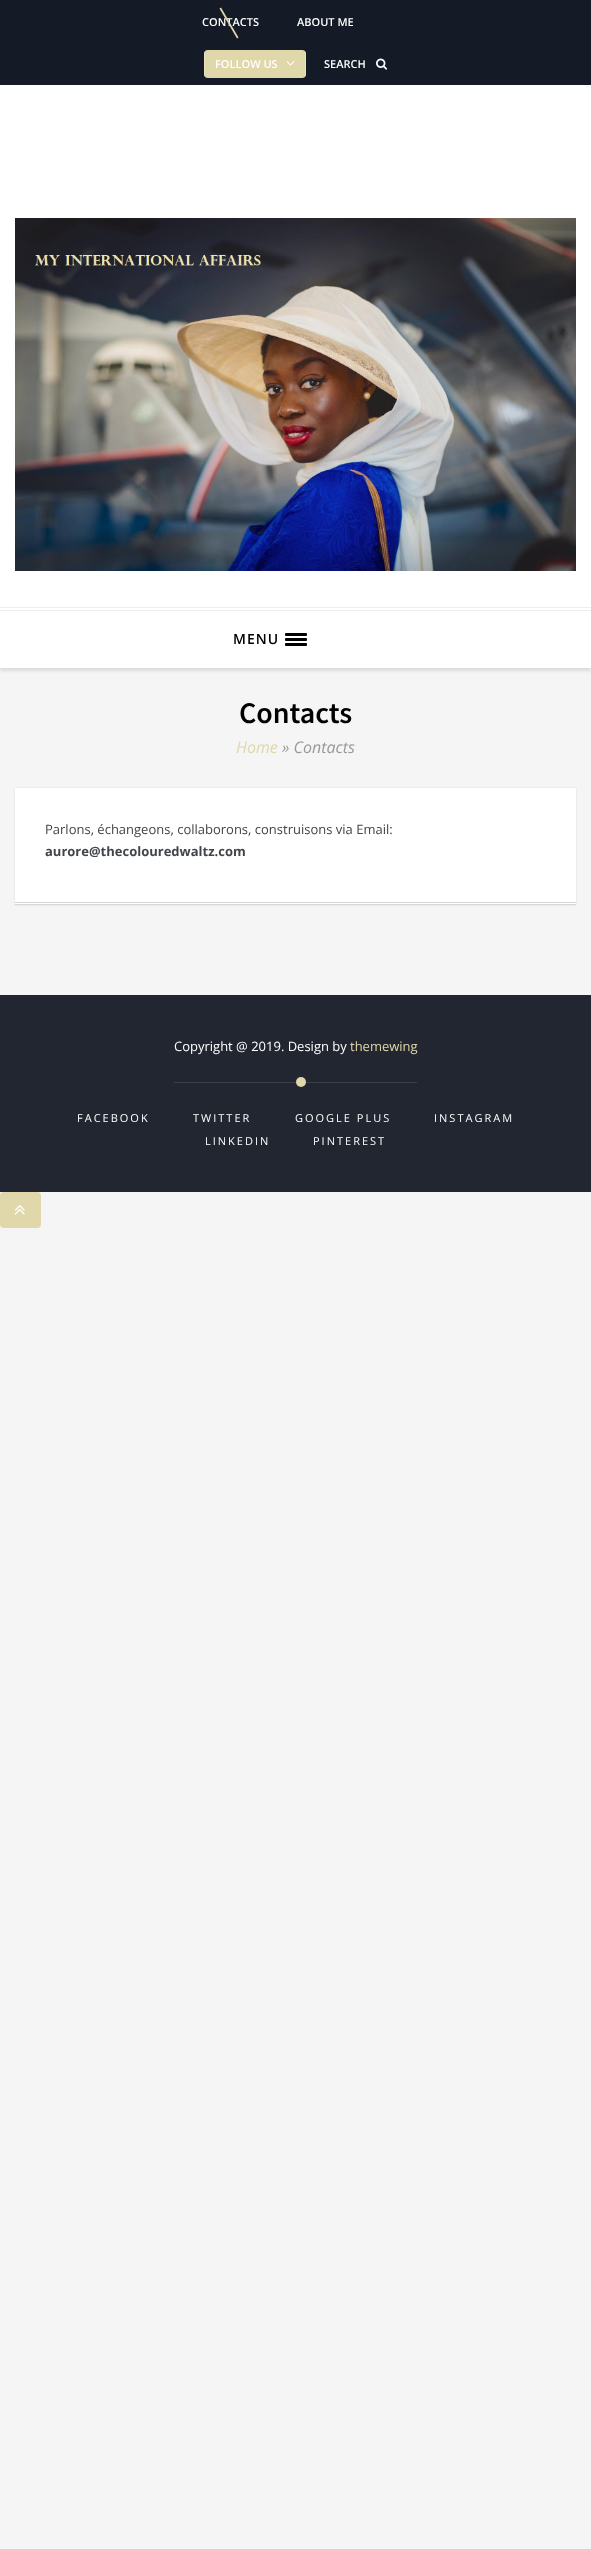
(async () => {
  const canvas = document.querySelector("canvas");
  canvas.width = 591;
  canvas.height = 2549;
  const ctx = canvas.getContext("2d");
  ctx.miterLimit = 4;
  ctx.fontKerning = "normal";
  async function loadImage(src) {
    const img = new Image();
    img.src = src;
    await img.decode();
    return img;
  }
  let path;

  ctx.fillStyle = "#f5f5f5";
  ctx.fillRect(0, 0, 591, 2549);
  ctx.fillStyle = "#141b27";
  ctx.fillRect(0, 0, 591, 85);
  ctx.fillStyle = "#e0d7aa";
  ctx.beginPath();
  ctx.roundRect(204, 50, 102, 28, 4);
  ctx.fill();
  ctx.fillStyle = "rgba(255, 255, 255, 0.3)";
  ctx.fillRect(305, 52, 1, 24);
  ctx.fillRect(204, 52, 1, 24);
  ctx.drawImage(await loadImage("img/1.png"), 286, 61, 9, 5);
  ctx.drawImage(await loadImage("img/2.png"), 376, 58, 12, 12);
  ctx.fillStyle = "rgba(0, 0, 0, 0.1)";
  ctx.filter = "blur(1.5px)";
  ctx.beginPath();
  ctx.rect(0, 610, 591, 61);
  ctx.fill();
  ctx.filter = "none";
  ctx.fillStyle = "#ffffff";
  ctx.fillRect(0, 85, 591, 522);
  ctx.drawImage(await loadImage("img/3.png"), 15, 218, 561, 353);
  for (const [x, y, w, h, color] of [
    [0, 608, 591, 60, "#ffffff"],
    [0, 607, 591, 1, "#eeeeee"],
    [0, 610, 591, 1, "#eeeeee"],
  ]) {
    ctx.fillStyle = color;
    ctx.fillRect(x, y, w, h);
  }
  ctx.fillStyle = "#000000";
  ctx.beginPath();
  ctx.roundRect(285, 633, 22, 3, 1);
  ctx.fill();
  ctx.beginPath();
  ctx.roundRect(285, 638, 22, 3, 1);
  ctx.fill();
  ctx.beginPath();
  ctx.roundRect(285, 643, 22, 3, 1);
  ctx.fill();
  ctx.fillStyle = "rgba(0, 0, 0, 0.1)";
  ctx.filter = "blur(1px)";
  ctx.beginPath();
  ctx.rect(15, 788, 561, 117);
  ctx.fill();
  ctx.filter = "none";
  for (const [x, y, w, h, color] of [
    [15, 788, 561, 116, "#ffffff"],
    [15, 902, 561, 1, "#d6d6d6"],
    [15, 904, 561, 1, "#d6d6d6"],
    [0, 995, 591, 197, "#222631"],
    [174, 1082, 243, 1, "#3d404a"],
  ]) {
    ctx.fillStyle = color;
    ctx.fillRect(x, y, w, h);
  }
  ctx.fillStyle = "#e0d7aa";
  ctx.beginPath();
  ctx.arc(301, 1082, 5, 0, Math.PI * 2);
  ctx.fill();
  ctx.beginPath();
  ctx.roundRect(0, 1192, 41, 36, 4);
  ctx.fill();
  ctx.drawImage(await loadImage("img/4.png"), 14, 1205, 11, 10);
  ctx.font = "600 11px Open Sans";
  ctx.fillStyle = "#ffffff";
  ctx.fillText("CONTACTS", 202, 26);
  ctx.fillStyle = "#e0d7aa";
  path = new Path2D("M221 7.5L238.5 37.5L237 38.5L219.5 8.5Z");
  ctx.fill(path);
  ctx.fillStyle = "#ffffff";
  for (const [text, x, y] of [
    ["ABOUT ME", 297, 26],
    ["FOLLOW US", 215, 68],
    ["SEARCH", 324, 68],
  ]) {
    ctx.fillText(text, x, y);
  }
  ctx.letterSpacing = "1px";
  ctx.font = "600 14px Open Sans";
  ctx.fillStyle = "#000000";
  ctx.fillText("MENU", 233, 644);
  ctx.letterSpacing = "0px";
  ctx.font = "600 30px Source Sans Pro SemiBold";
  ctx.fillText("Contacts", 239, 723);
  ctx.font = "italic 16px Open Sans";
  ctx.fillStyle = "#e0d7aa";
  ctx.fillText("Home", 236, 753);
  ctx.fillStyle = "#999999";
  ctx.fillText("» Contacts", 282, 753);
  ctx.font = "13px Open Sans";
  ctx.fillStyle = "#414549";
  ctx.fillText("Parlons, échangeons, collaborons, construisons via Email:", 45, 834);
  ctx.font = "bold 13px Open Sans";
  ctx.fillText("aurore@thecolouredwaltz.com", 45, 856);
  ctx.font = "13px Open Sans";
  ctx.fillStyle = "#ffffff";
  ctx.fillText("Copyright @ 2019. Design by", 174, 1051);
  ctx.fillStyle = "#e0d7aa";
  ctx.fillText("themewing", 350, 1051);
  ctx.letterSpacing = "2px";
  ctx.font = "11px Open Sans";
  ctx.fillStyle = "#ffffff";
  for (const [text, x, y] of [
    ["FACEBOOK", 77, 1122],
    ["TWITTER", 193, 1122],
    ["GOOGLE PLUS", 295, 1122],
    ["INSTAGRAM", 434, 1122],
    ["LINKEDIN", 205, 1145],
    ["PINTEREST", 313, 1145],
  ]) {
    ctx.fillText(text, x, y);
  }
})();
